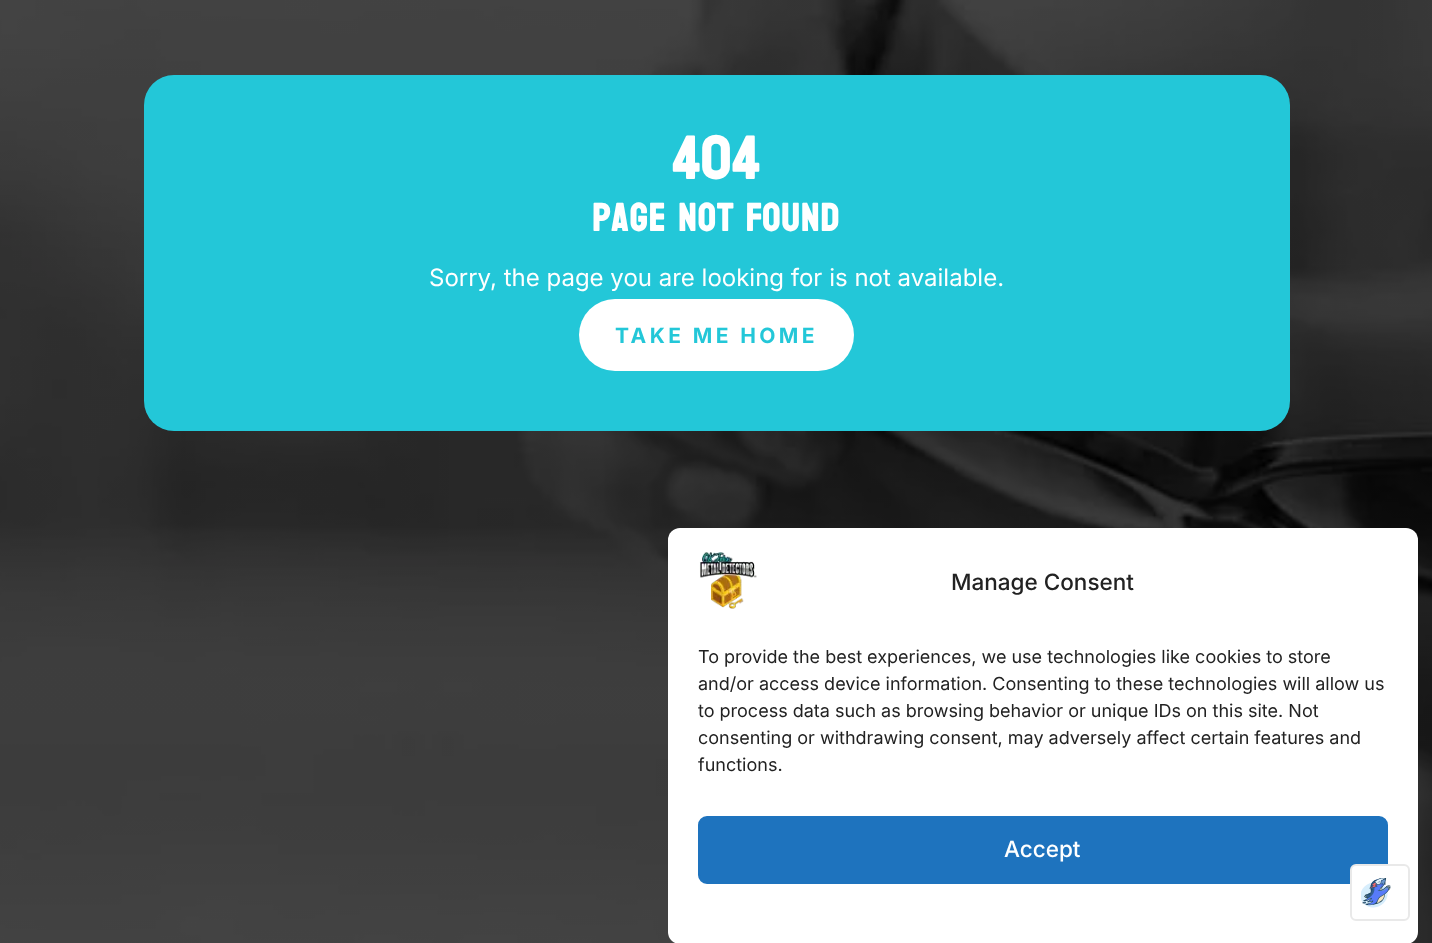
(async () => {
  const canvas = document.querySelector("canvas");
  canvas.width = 1432;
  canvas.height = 943;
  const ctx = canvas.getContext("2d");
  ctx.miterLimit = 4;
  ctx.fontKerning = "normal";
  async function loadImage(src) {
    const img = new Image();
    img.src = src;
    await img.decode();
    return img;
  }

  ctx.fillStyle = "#ffffff";
  ctx.fillRect(0, 0, 1432, 943);
  ctx.drawImage(await loadImage("img/1.png"), 0, 0, 1432, 943);
  ctx.fillStyle = "#23c7d8";
  ctx.beginPath();
  ctx.roundRect(144, 75, 1146, 356, 30);
  ctx.fill();
  ctx.fillStyle = "#ffffff";
  ctx.beginPath();
  ctx.roundRect(579, 299, 275, 72, 36);
  ctx.fill();
  ctx.beginPath();
  ctx.roundRect(668, 528, 750, 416, 12);
  ctx.fill();
  ctx.drawImage(await loadImage("img/2.png"), 699, 552, 58, 57);
  ctx.fillStyle = "#1e73be";
  ctx.beginPath();
  ctx.roundRect(699, 817, 688, 66, 8);
  ctx.fill();
  ctx.strokeStyle = "#1e73be";
  ctx.lineWidth = 2;
  ctx.stroke();
  ctx.fillStyle = "#ffffff";
  ctx.beginPath();
  ctx.roundRect(1351, 865, 58, 55, 5);
  ctx.fill();
  ctx.strokeStyle = "#e9e9e9";
  ctx.stroke();
  ctx.drawImage(await loadImage("img/3.png"), 1361, 878, 30, 30);
  ctx.letterSpacing = "1.5px";
  ctx.font = "bold 60px Bayon";
  ctx.fillText("404", 672, 179);
  ctx.font = "bold 39px Bayon";
  ctx.fillText("Page Not Found", 592, 231);
  ctx.letterSpacing = "0px";
  ctx.font = "24px Inter";
  ctx.fillText("Sorry, the page you are looking for is not available.", 429, 286);
  ctx.letterSpacing = "3.4px";
  ctx.font = "bold 21px Inter";
  ctx.fillStyle = "#23c7d8";
  ctx.fillText("TAKE ME HOME", 615, 343);
  ctx.letterSpacing = "0px";
  ctx.font = "500 22.5px Inter";
  ctx.fillStyle = "#222222";
  ctx.fillText("Manage Consent", 951, 590);
  ctx.font = "18px Inter";
  for (const [text, x, y] of [
    ["To provide the best experiences, we use technologies like cookies to store", 698, 663],
    ["and/or access device information. Consenting to these technologies will allow us", 698, 690],
    ["to process data such as browsing behavior or unique IDs on this site. Not", 698, 717],
    ["consenting or withdrawing consent, may adversely affect certain features and", 698, 744],
    ["functions.", 698, 771],
  ]) {
    ctx.fillText(text, x, y);
  }
  ctx.font = "500 22.5px Inter";
  ctx.fillStyle = "#ffffff";
  ctx.fillText("Accept", 1004, 857);
})();
